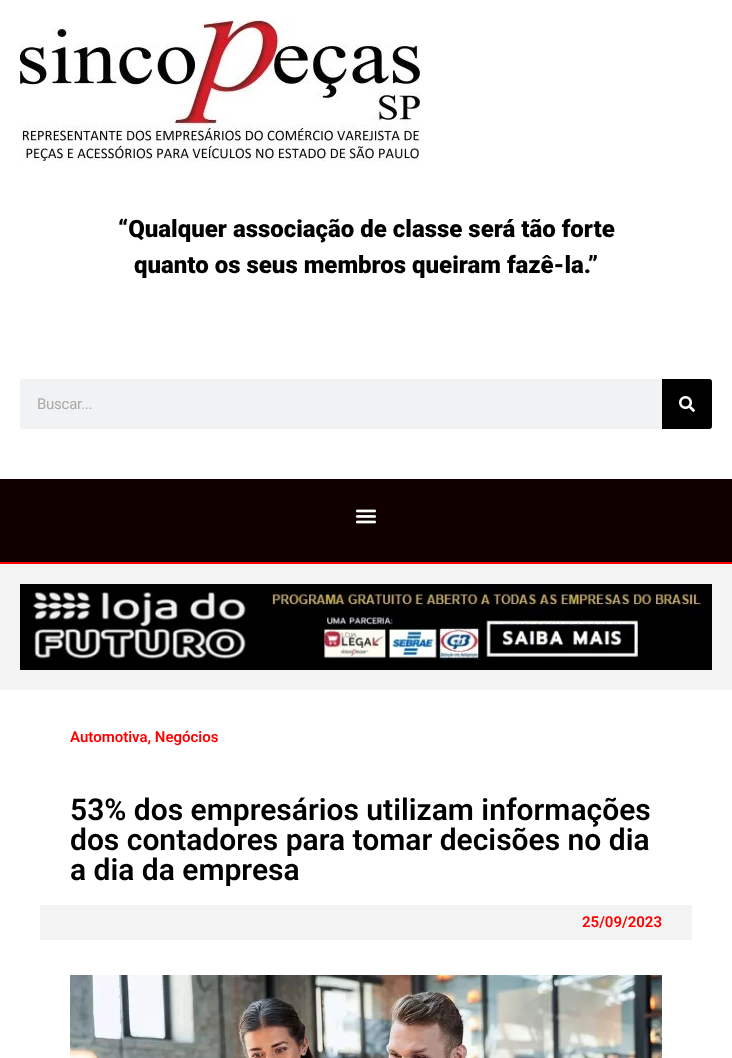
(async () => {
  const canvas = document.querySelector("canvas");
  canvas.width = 732;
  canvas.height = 1058;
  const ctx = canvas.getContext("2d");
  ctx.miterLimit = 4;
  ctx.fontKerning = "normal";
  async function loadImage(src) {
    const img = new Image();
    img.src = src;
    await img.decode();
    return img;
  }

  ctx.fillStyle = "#ffffff";
  ctx.fillRect(0, 0, 732, 1058);
  ctx.drawImage(await loadImage("img/1.png"), 20, 20, 400, 141);
  ctx.fillStyle = "#f1f2f3";
  ctx.beginPath();
  ctx.roundRect(20, 379, 692, 50, 3);
  ctx.fill();
  ctx.fillStyle = "#000000";
  ctx.beginPath();
  ctx.roundRect(662, 379, 50, 50, [0, 3, 3, 0]);
  ctx.fill();
  ctx.drawImage(await loadImage("img/2.png"), 679, 396, 16, 16);
  ctx.fillStyle = "#110000";
  ctx.fillRect(0, 479, 732, 83);
  ctx.fillStyle = "#ff0000";
  ctx.fillRect(0, 562, 732, 2);
  ctx.drawImage(await loadImage("img/3.png"), 355, 509, 22, 15);
  ctx.fillStyle = "#f3f3f3";
  ctx.fillRect(0, 564, 732, 126);
  ctx.drawImage(await loadImage("img/4.png"), 20, 584, 692, 86);
  ctx.fillRect(40, 905, 652, 35);
  ctx.drawImage(await loadImage("img/5.png"), 70, 975, 592, 83);
  ctx.font = "900 24px Roboto";
  ctx.fillStyle = "#000000";
  ctx.fillText("“Qualquer associação de classe será tão forte", 118, 237);
  ctx.fillText("quanto os seus membros queiram fazê-la.”", 134, 273);
  ctx.letterSpacing = "-0.25px";
  ctx.font = "15px Roboto";
  ctx.fillStyle = "#aaaaaa";
  ctx.fillText("Buscar...", 37, 409);
  ctx.letterSpacing = "0px";
  ctx.font = "600 15px Roboto";
  ctx.fillStyle = "#ff0000";
  ctx.fillText("Automotiva, Negócios", 70, 742);
  ctx.font = "600 30px Roboto";
  ctx.fillStyle = "#000000";
  for (const [text, x, y] of [
    ["53% dos empresários utilizam informações", 70, 820],
    ["dos contadores para tomar decisões no dia", 70, 850],
    ["a dia da empresa", 70, 880],
  ]) {
    ctx.fillText(text, x, y);
  }
  ctx.font = "600 15px Roboto";
  ctx.fillStyle = "#ff0000";
  ctx.fillText("25/09/2023", 582, 927);
})();
